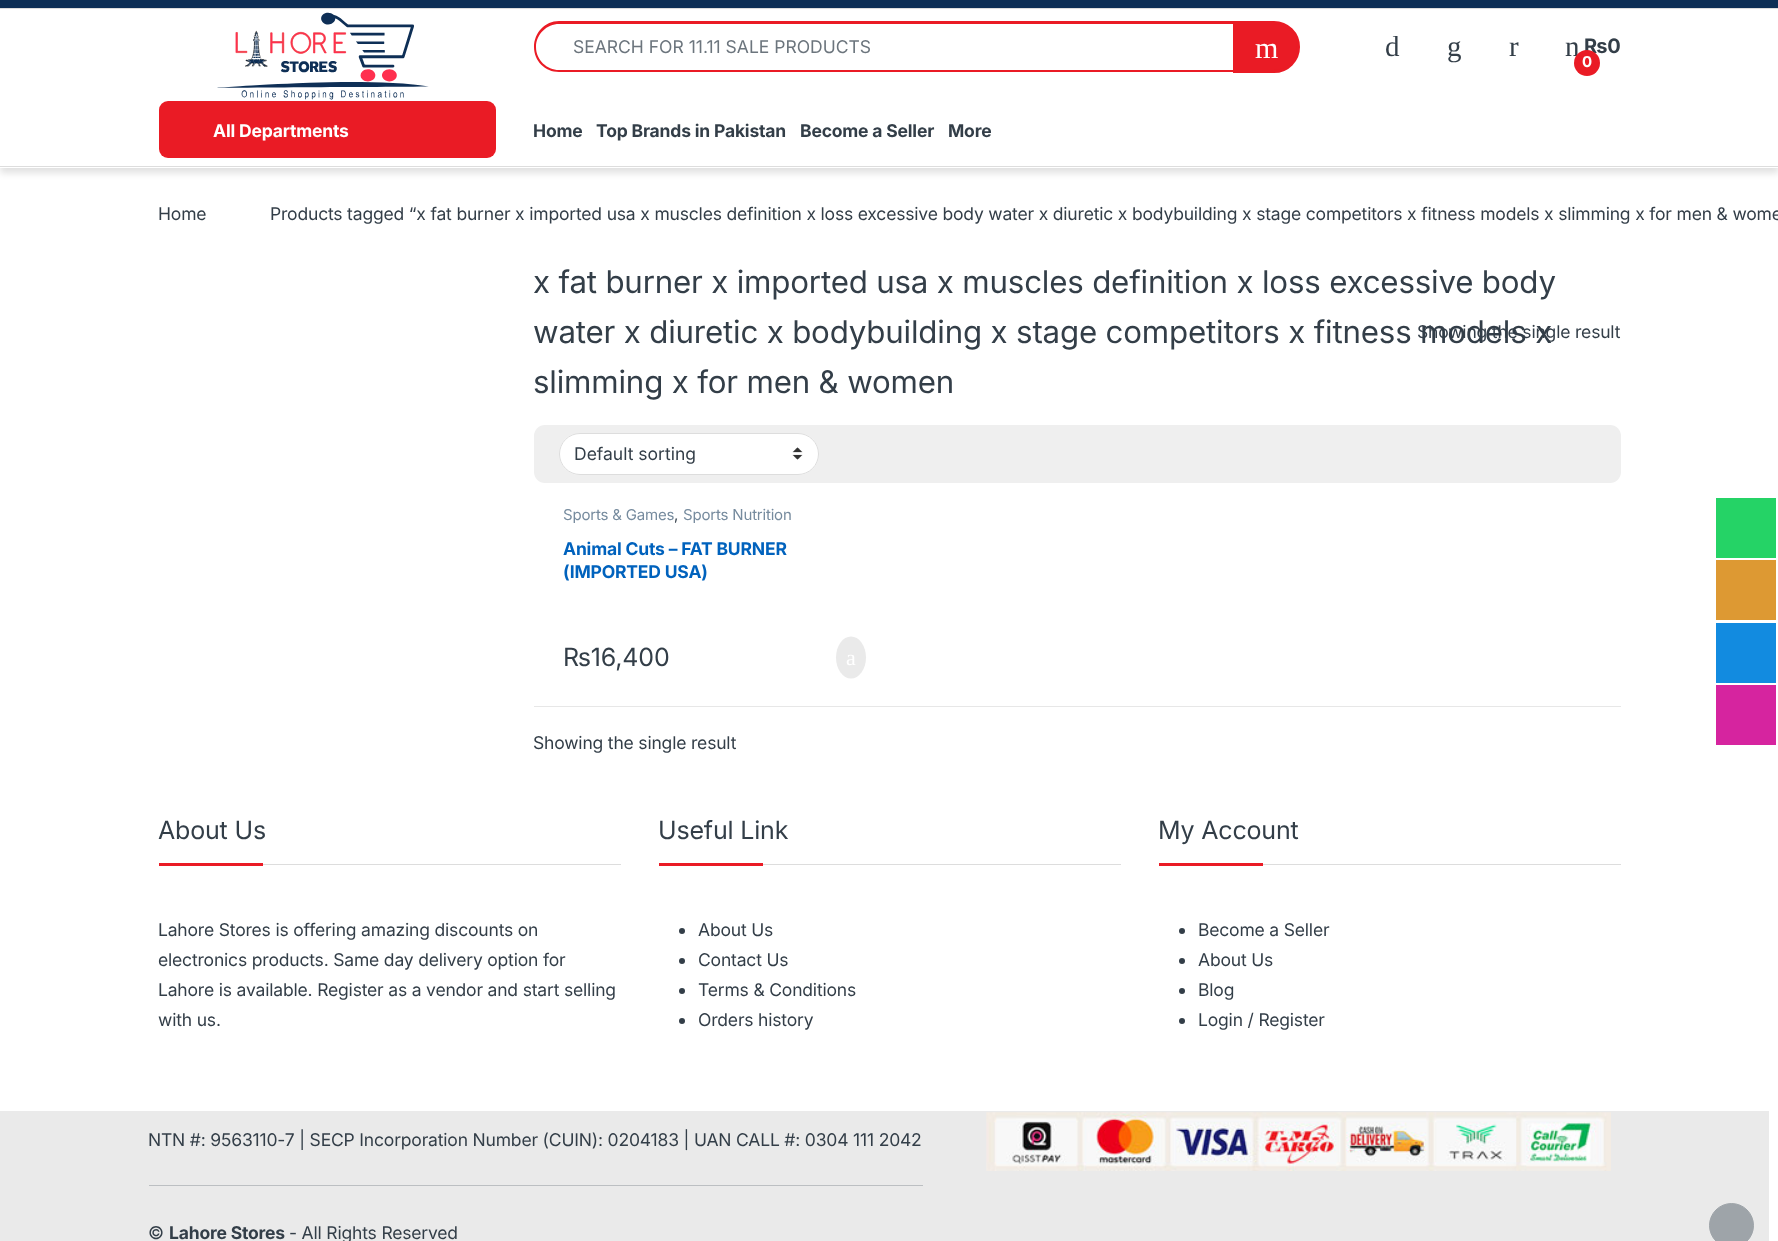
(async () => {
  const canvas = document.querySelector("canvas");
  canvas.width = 1778;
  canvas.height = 1241;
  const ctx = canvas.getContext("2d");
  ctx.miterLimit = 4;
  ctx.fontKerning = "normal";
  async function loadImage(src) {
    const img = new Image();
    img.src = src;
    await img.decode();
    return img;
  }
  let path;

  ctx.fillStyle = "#ffffff";
  ctx.fillRect(0, 0, 1778, 1241);
  ctx.save();
  path = new Path2D("M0 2H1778V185H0ZM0 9H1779V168H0Z");
  ctx.clip(path, "evenodd");
  ctx.fillStyle = "rgba(0, 0, 0, 0.12)";
  ctx.filter = "blur(3.5px)";
  ctx.beginPath();
  ctx.rect(0, 14, 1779, 159);
  ctx.fill();
  ctx.filter = "none";
  ctx.restore();
  for (const [x, y, w, h, color] of [
    [0, 0, 1778, 8, "#0e2f56"],
    [0, 8, 1778, 1, "#dddddd"],
    [0, 166, 1778, 1, "#dddddd"],
  ]) {
    ctx.fillStyle = color;
    ctx.fillRect(x, y, w, h);
  }
  ctx.drawImage(await loadImage("img/1.png"), 217, 12, 212, 88);
  ctx.fillStyle = "#ea1b25";
  path = new Path2D("M559 21H1234V72H559C545 72 534 61 534 47C534 33 545 21 559 21ZM559 24H1234V70H559C547 70 536 60 536 47C536 34 547 24 559 24Z");
  ctx.fill(path, "evenodd");
  ctx.beginPath();
  ctx.roundRect(1234.5, 22.5, 64, 49, [0, 24.5, 24.5, 0]);
  ctx.fill();
  ctx.strokeStyle = "#ea1b25";
  ctx.lineWidth = 3;
  ctx.stroke();
  ctx.beginPath();
  ctx.roundRect(159, 101, 337, 57, 9);
  ctx.fill();
  ctx.fillStyle = "#efefef";
  ctx.beginPath();
  ctx.roundRect(534, 425, 1087, 58, 11);
  ctx.fill();
  ctx.fillStyle = "#ffffff";
  ctx.beginPath();
  ctx.roundRect(559, 433, 260, 42, 21);
  ctx.fill();
  ctx.drawImage(await loadImage("img/2.png"), 792, 447, 11, 13);
  ctx.beginPath();
  ctx.roundRect(559.5, 433.5, 259, 41, 20.5);
  ctx.strokeStyle = "#dddddd";
  ctx.lineWidth = 1;
  ctx.stroke();
  ctx.fillStyle = "#eaeaea";
  ctx.beginPath();
  ctx.ellipse(851, 657.5, 15, 21, 0, 0, Math.PI * 2);
  ctx.fill();
  for (const [x, y, w, h, color] of [
    [534, 706, 1087, 1, "#e7e7e7"],
    [263, 864, 358, 1, "#dddddd"],
    [159, 863, 104, 3, "#ea1b25"],
    [763, 864, 358, 1, "#dddddd"],
    [659, 863, 104, 3, "#ea1b25"],
  ]) {
    ctx.fillStyle = color;
    ctx.fillRect(x, y, w, h);
  }
  ctx.fillStyle = "#333e48";
  ctx.beginPath();
  ctx.arc(682, 931, 3, 0, Math.PI * 2);
  ctx.fill();
  ctx.beginPath();
  ctx.arc(682, 961, 3, 0, Math.PI * 2);
  ctx.fill();
  ctx.beginPath();
  ctx.arc(682, 991, 3, 0, Math.PI * 2);
  ctx.fill();
  ctx.beginPath();
  ctx.arc(682, 1021, 3, 0, Math.PI * 2);
  ctx.fill();
  ctx.fillStyle = "#dddddd";
  ctx.fillRect(1263, 864, 358, 1);
  ctx.fillStyle = "#ea1b25";
  ctx.fillRect(1159, 863, 104, 3);
  ctx.fillStyle = "#333e48";
  ctx.beginPath();
  ctx.arc(1182, 931, 3, 0, Math.PI * 2);
  ctx.fill();
  ctx.beginPath();
  ctx.arc(1182, 961, 3, 0, Math.PI * 2);
  ctx.fill();
  ctx.beginPath();
  ctx.arc(1182, 991, 3, 0, Math.PI * 2);
  ctx.fill();
  ctx.beginPath();
  ctx.arc(1182, 1021, 3, 0, Math.PI * 2);
  ctx.fill();
  ctx.fillStyle = "#eaeaea";
  ctx.fillRect(0, 1111, 1769, 130);
  ctx.fillStyle = "#bcbfc2";
  ctx.fillRect(149, 1185, 774, 1);
  ctx.drawImage(await loadImage("img/3.png"), 986, 1112, 625, 59);
  for (const [x, y, w, h, color] of [
    [1716, 498, 60, 60, "#25d366"],
    [1716, 560, 60, 60, "#dd9933"],
    [1716, 623, 60, 60, "#128be0"],
    [1716, 685, 60, 60, "#d6249f"],
  ]) {
    ctx.fillStyle = color;
    ctx.fillRect(x, y, w, h);
  }
  ctx.fillStyle = "#9ea4a9";
  ctx.beginPath();
  ctx.arc(1731.5, 1225.5, 22, 0, Math.PI * 2);
  ctx.fill();
  ctx.strokeStyle = "#9ea4a9";
  ctx.stroke();
  ctx.font = "17.5px Inter";
  ctx.fillStyle = "#6c757d";
  ctx.fillText("SEARCH FOR 11.11 SALE PRODUCTS", 573, 53);
  ctx.font = "30px Liberation Serif";
  ctx.fillStyle = "#ffffff";
  ctx.fillText("m", 1255, 58);
  ctx.letterSpacing = "-0.18px";
  ctx.font = "29px Liberation Serif";
  ctx.fillStyle = "#333e48";
  for (const [text, x, y] of [
    ["d", 1385, 56],
    ["g", 1447, 56],
    ["r", 1509, 56],
    ["n", 1565, 56],
  ]) {
    ctx.fillText(text, x, y);
  }
  ctx.font = "bold 20px Inter";
  ctx.fillText("₨0", 1584, 53);
  ctx.fillStyle = "#ea1b25";
  ctx.beginPath();
  ctx.arc(1587, 63, 13, 0, Math.PI * 2);
  ctx.fill();
  ctx.font = "bold 15px Inter";
  ctx.fillStyle = "#ffffff";
  ctx.fillText("0", 1582, 67);
  ctx.font = "bold 17.5px Inter";
  ctx.fillText("All Departments", 213, 137);
  ctx.fillStyle = "#333e48";
  for (const [text, x, y] of [
    ["Home", 533, 137],
    ["Top Brands in Pakistan", 596, 137],
    ["Become a Seller", 800, 137],
    ["More", 948, 137],
  ]) {
    ctx.fillText(text, x, y);
  }
  ctx.font = "17.5px Inter";
  ctx.fillText("Home", 158, 220);
  ctx.fillText("Products tagged “x fat burner x imported usa x muscles definition x loss excessive body water x diuretic x bodybuilding x stage competitors x fitness models x slimming x for men & wome", 270, 220);
  ctx.font = "31.25px Inter";
  for (const [text, x, y] of [
    ["x fat burner x imported usa x muscles definition x loss excessive body", 533, 293],
    ["water x diuretic x bodybuilding x stage competitors x fitness models x", 533, 343],
    ["slimming x for men & women", 533, 393],
  ]) {
    ctx.fillText(text, x, y);
  }
  ctx.font = "17.5px Inter";
  ctx.fillText("Showing the single result", 1417, 338);
  ctx.letterSpacing = "0px";
  ctx.fillText("Default sorting", 574, 460);
  ctx.letterSpacing = "-0.18px";
  ctx.font = "15px Inter";
  ctx.fillStyle = "#768b9e";
  ctx.fillText("Sports & Games", 563, 520);
  ctx.fillStyle = "#333e48";
  ctx.fillText(",", 674, 520);
  ctx.fillStyle = "#768b9e";
  ctx.fillText("Sports Nutrition", 683, 520);
  ctx.font = "bold 17.5px Inter";
  ctx.fillStyle = "#0062bd";
  ctx.fillText("Animal Cuts – FAT BURNER", 563, 555);
  ctx.fillText("(IMPORTED USA)", 563, 578);
  ctx.font = "25px Inter";
  ctx.fillStyle = "#333e48";
  ctx.fillText("₨16,400", 563, 666);
  ctx.font = "22px Liberation Serif";
  ctx.fillStyle = "#ffffff";
  ctx.fillText("a", 846, 665);
  ctx.font = "17.5px Inter";
  ctx.fillStyle = "#333e48";
  ctx.fillText("Showing the single result", 533, 749);
  ctx.font = "25px Inter";
  ctx.fillText("About Us", 158, 839);
  ctx.font = "17.5px Inter";
  for (const [text, x, y] of [
    ["Lahore Stores is offering amazing discounts on", 158, 936],
    ["electronics products. Same day delivery option for", 158, 966],
    ["Lahore is available. Register as a vendor and start selling", 158, 996],
    ["with us.", 158, 1026],
  ]) {
    ctx.fillText(text, x, y);
  }
  ctx.font = "25px Inter";
  ctx.fillText("Useful Link", 658, 839);
  ctx.font = "17.5px Inter";
  for (const [text, x, y] of [
    ["About Us", 698, 936],
    ["Contact Us", 698, 966],
    ["Terms & Conditions", 698, 996],
    ["Orders history", 698, 1026],
  ]) {
    ctx.fillText(text, x, y);
  }
  ctx.font = "25px Inter";
  ctx.fillText("My Account", 1158, 839);
  ctx.font = "17.5px Inter";
  for (const [text, x, y] of [
    ["Become a Seller", 1198, 936],
    ["About Us", 1198, 966],
    ["Blog", 1198, 996],
    ["Login / Register", 1198, 1026],
    ["NTN #: 9563110-7 | SECP Incorporation Number (CUIN): 0204183 | UAN CALL #: 0304 111 2042", 148, 1146],
    ["©", 148, 1239],
  ]) {
    ctx.fillText(text, x, y);
  }
  ctx.font = "bold 17.5px Inter";
  ctx.fillText("Lahore Stores", 169, 1239);
  ctx.font = "17.5px Inter";
  ctx.fillText("- All Rights Reserved", 289, 1239);
})();
